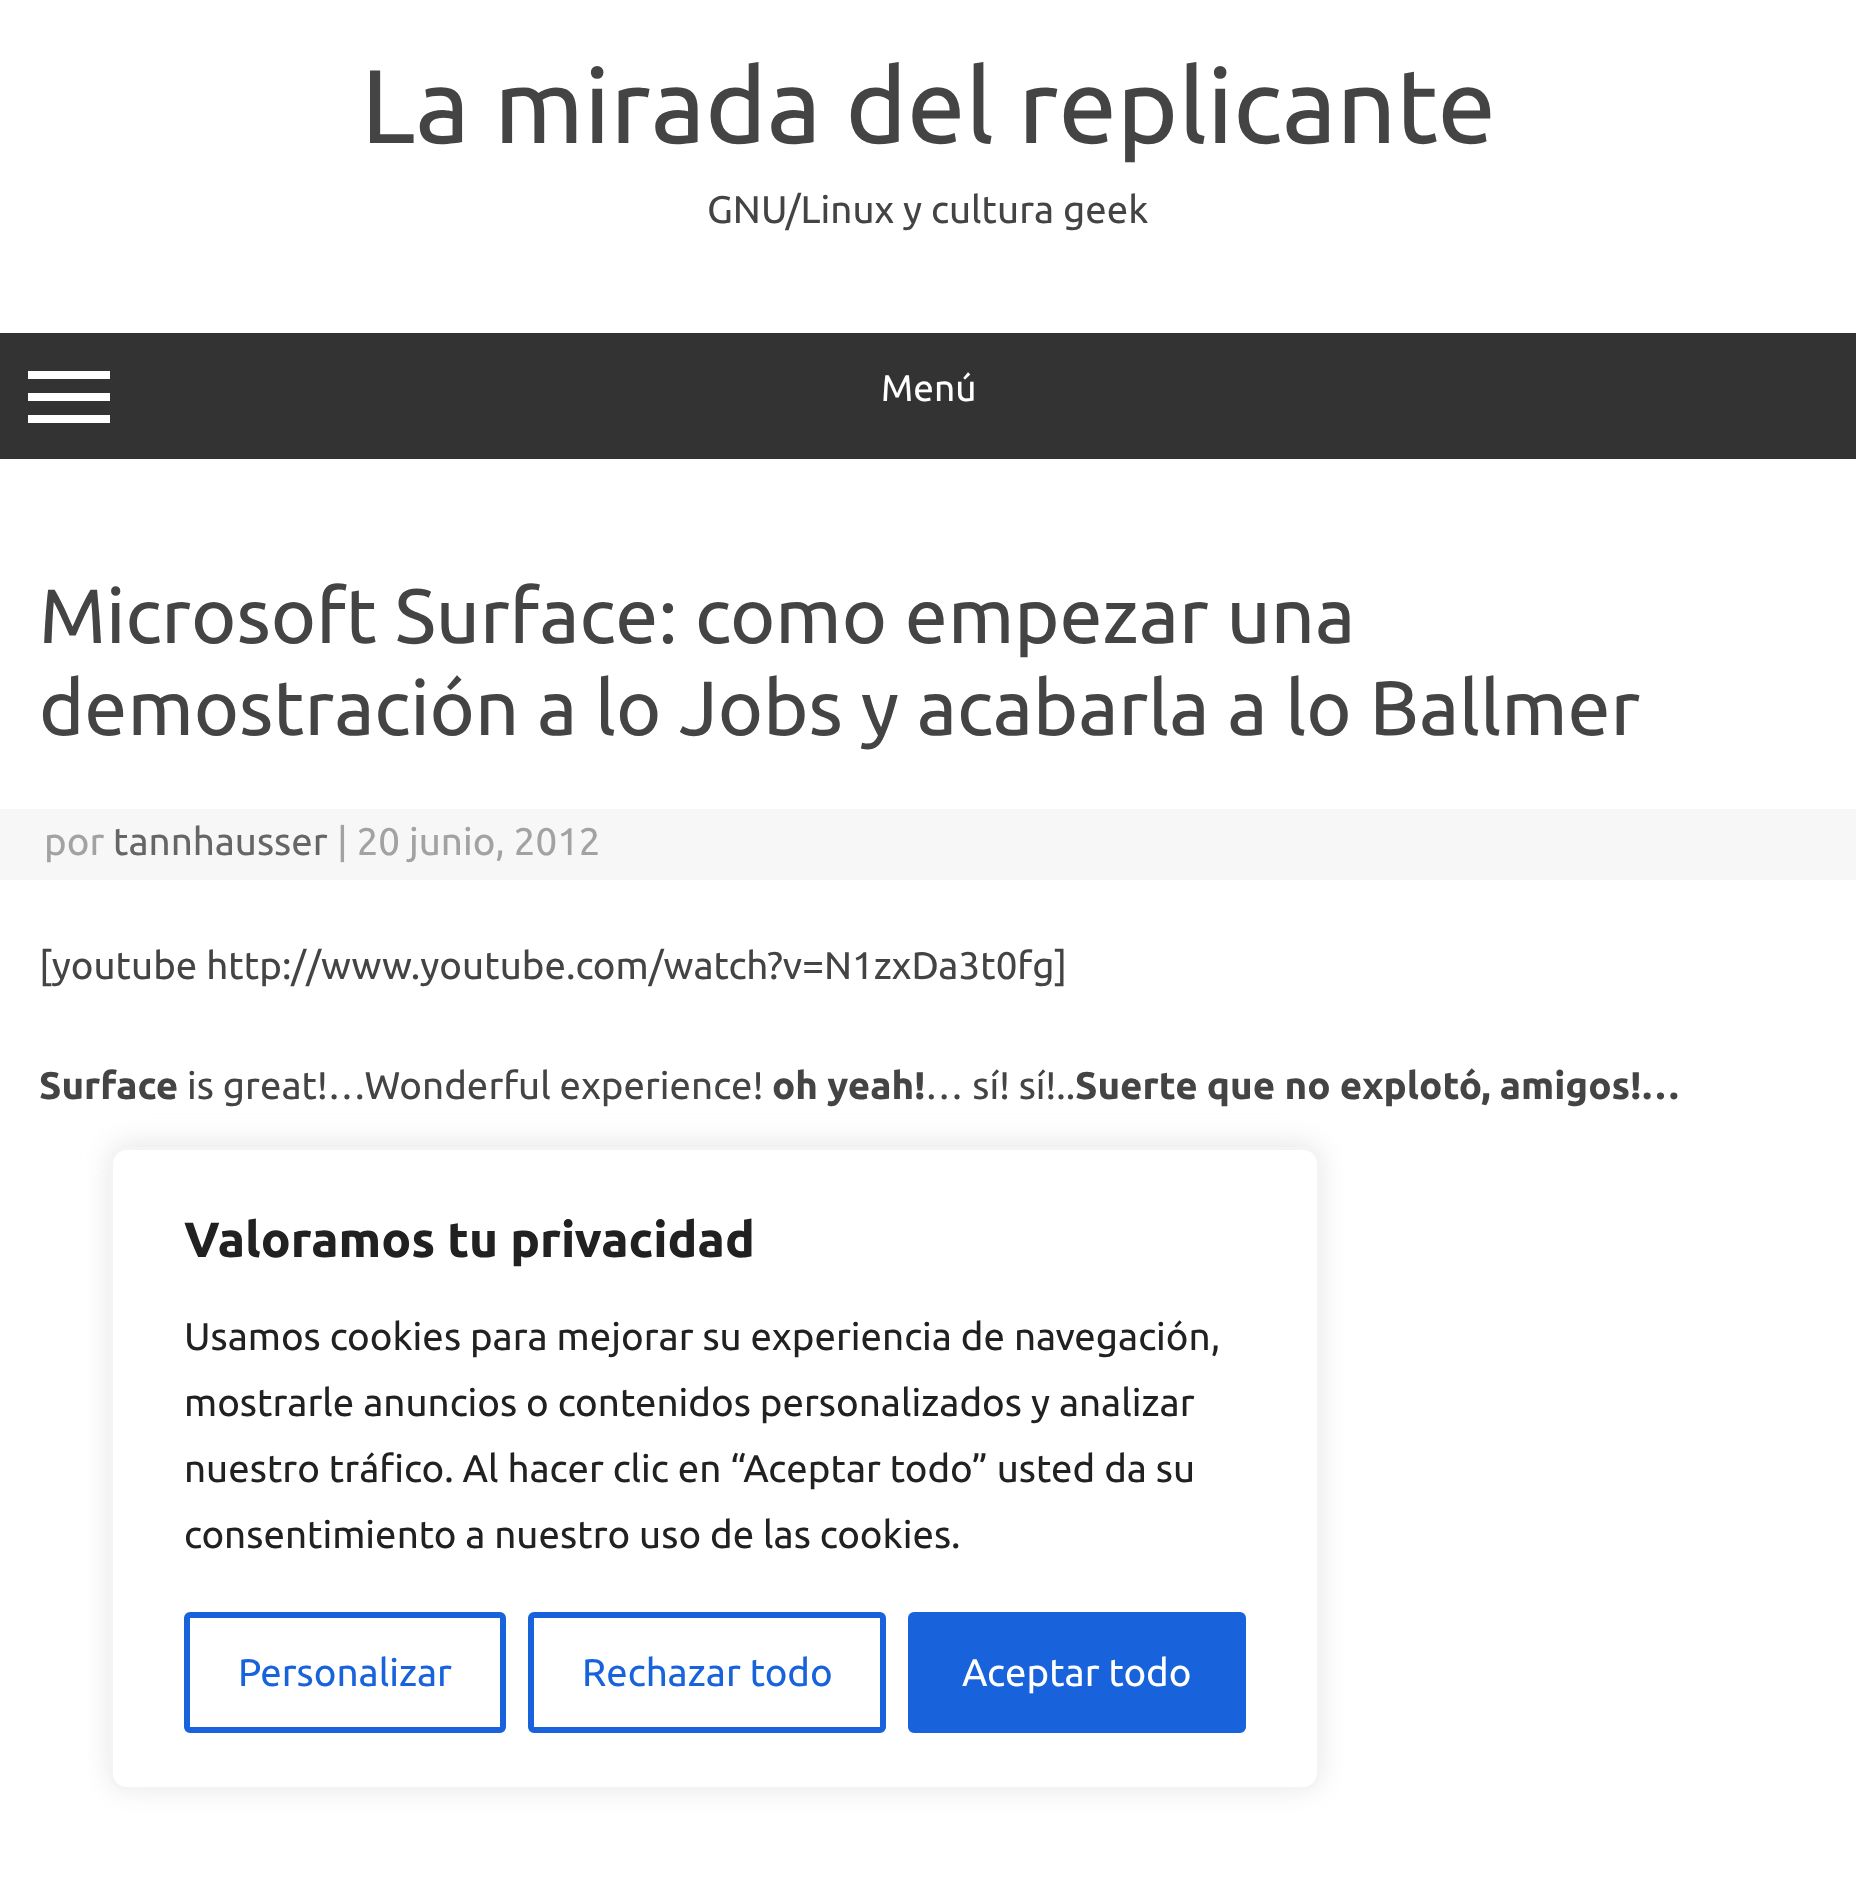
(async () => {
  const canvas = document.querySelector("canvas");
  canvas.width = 1856;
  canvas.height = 1900;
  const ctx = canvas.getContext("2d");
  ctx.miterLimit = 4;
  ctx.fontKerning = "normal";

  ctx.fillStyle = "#ffffff";
  ctx.fillRect(0, 0, 1856, 1900);
  for (const [x, y, w, h, color] of [
    [0, 333, 1856, 126, "#333333"],
    [28, 371, 82, 8, "#ffffff"],
    [28, 393, 82, 8, "#ffffff"],
    [28, 415, 82, 8, "#ffffff"],
    [0, 809, 1856, 71, "#f7f7f7"],
  ]) {
    ctx.fillStyle = color;
    ctx.fillRect(x, y, w, h);
  }
  ctx.fillStyle = "rgba(172, 171, 171, 0.3)";
  ctx.filter = "blur(14px)";
  ctx.beginPath();
  ctx.roundRect(110, 1144, 1210, 644, 17);
  ctx.fill();
  ctx.filter = "none";
  ctx.fillStyle = "#ffffff";
  ctx.beginPath();
  ctx.roundRect(111.5, 1148.5, 1207, 640, 15.5);
  ctx.fill();
  ctx.strokeStyle = "#f4f4f4";
  ctx.lineWidth = 3;
  ctx.stroke();
  ctx.beginPath();
  ctx.roundRect(187, 1615, 316, 115, 3);
  ctx.strokeStyle = "#1863dc";
  ctx.lineWidth = 6;
  ctx.stroke();
  ctx.beginPath();
  ctx.roundRect(531, 1615, 352, 115, 3);
  ctx.stroke();
  ctx.fillStyle = "#1863dc";
  ctx.beginPath();
  ctx.roundRect(911, 1615, 332, 115, 3);
  ctx.fill();
  ctx.stroke();
  ctx.font = "104.5px Ubuntu";
  ctx.fillStyle = "#444444";
  ctx.fillText("La mirada del replicante", 361, 143);
  ctx.font = "38.5px Ubuntu";
  ctx.fillText("GNU/Linux y cultura geek", 707, 223);
  ctx.font = "37px Ubuntu";
  ctx.fillStyle = "#ffffff";
  ctx.fillText("Menú", 881, 401);
  ctx.font = "77px Ubuntu";
  ctx.fillStyle = "#444444";
  ctx.fillText("Microsoft Surface: como empezar una", 39, 643);
  ctx.fillText("demostración a lo Jobs y acabarla a lo Ballmer", 39, 735);
  ctx.font = "38.5px Ubuntu";
  ctx.fillStyle = "#a2a2a2";
  ctx.fillText("por", 44, 855);
  ctx.fillStyle = "#666666";
  ctx.fillText("tannhausser", 113, 855);
  ctx.fillStyle = "#a2a2a2";
  ctx.fillText("| 20 junio, 2012", 337, 855);
  ctx.fillStyle = "#444444";
  ctx.fillText("[youtube http://www.youtube.com/watch?v=N1zxDa3t0fg]", 39, 979);
  ctx.font = "bold 38.5px Ubuntu";
  ctx.fillText("Surface", 39, 1099);
  ctx.font = "38.5px Ubuntu";
  ctx.fillText("is great!…Wonderful experience!", 187, 1099);
  ctx.font = "bold 38.5px Ubuntu";
  ctx.fillText("oh yeah!", 772, 1099);
  ctx.font = "38.5px Ubuntu";
  ctx.fillText("… sí! sí!..", 925, 1099);
  ctx.font = "bold 38.5px Ubuntu";
  ctx.fillText("Suerte que no explotó, amigos!…", 1075, 1099);
  ctx.font = "bold 49.5px Ubuntu";
  ctx.fillStyle = "#212121";
  ctx.fillText("Valoramos tu privacidad", 184, 1257);
  ctx.font = "38.5px Ubuntu";
  for (const [text, x, y] of [
    ["Usamos cookies para mejorar su experiencia de navegación,", 184, 1350],
    ["mostrarle anuncios o contenidos personalizados y analizar", 184, 1416],
    ["nuestro tráfico. Al hacer clic en “Aceptar todo” usted da su", 184, 1482],
    ["consentimiento a nuestro uso de las cookies.", 184, 1548],
  ]) {
    ctx.fillText(text, x, y);
  }
  ctx.fillStyle = "#1863dc";
  ctx.fillText("Personalizar", 238, 1686);
  ctx.fillText("Rechazar todo", 582, 1686);
  ctx.fillStyle = "#ffffff";
  ctx.fillText("Aceptar todo", 962, 1686);
})();
